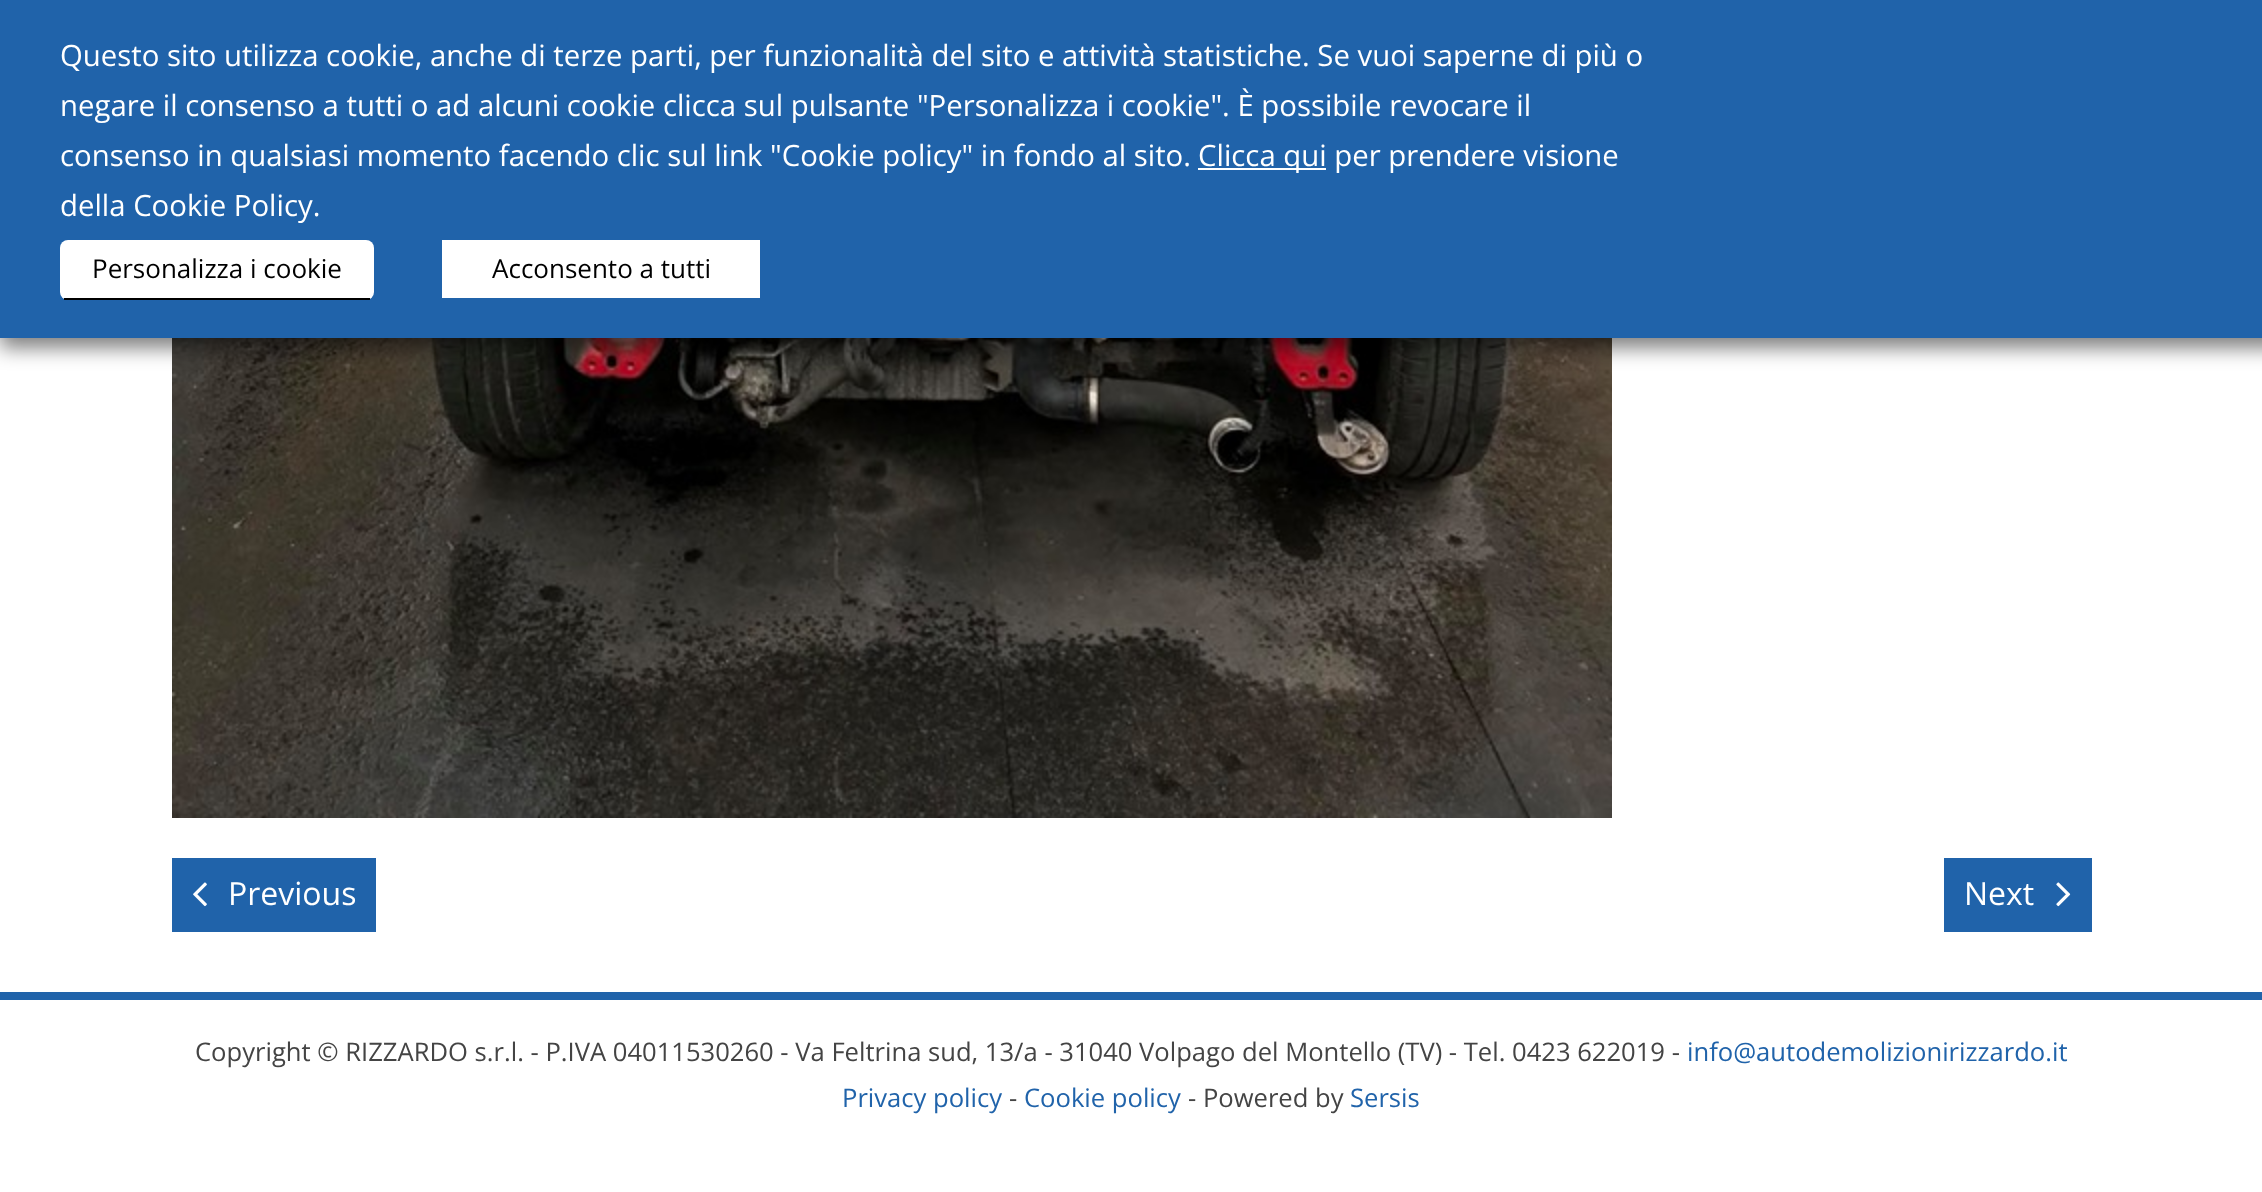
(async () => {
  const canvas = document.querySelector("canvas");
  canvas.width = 2262;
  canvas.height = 1192;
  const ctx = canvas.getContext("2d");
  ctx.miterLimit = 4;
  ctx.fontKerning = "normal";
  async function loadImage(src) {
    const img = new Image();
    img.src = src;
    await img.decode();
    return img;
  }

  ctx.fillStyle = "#ffffff";
  ctx.fillRect(0, 0, 2262, 1192);
  ctx.drawImage(await loadImage("img/1.png"), 172, 338, 1440, 480);
  ctx.fillStyle = "rgba(0, 0, 0, 0.5)";
  ctx.filter = "blur(10px)";
  ctx.beginPath();
  ctx.rect(0, 10, 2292, 338);
  ctx.fill();
  ctx.filter = "none";
  ctx.fillStyle = "#2063aa";
  ctx.fillRect(0, 0, 2262, 338);
  ctx.fillStyle = "#ffffff";
  ctx.fillRect(1198, 168, 128, 2);
  ctx.beginPath();
  ctx.roundRect(60, 240, 314, 60, 8);
  ctx.fill();
  for (const [x, y, w, h, color] of [
    [64, 298, 306, 2, "#000000"],
    [442, 240, 318, 58, "#ffffff"],
    [172, 858, 204, 74, "#2063aa"],
  ]) {
    ctx.fillStyle = color;
    ctx.fillRect(x, y, w, h);
  }
  ctx.drawImage(await loadImage("img/2.png"), 193, 882, 14, 25);
  ctx.fillRect(1944, 858, 148, 74);
  ctx.drawImage(await loadImage("img/3.png"), 2056, 882, 15, 25);
  ctx.fillRect(0, 992, 2262, 8);
  ctx.font = "29.33px Open Sans";
  ctx.fillStyle = "#ffffff";
  for (const [text, x, y] of [
    ["Questo sito utilizza cookie, anche di terze parti, per funzionalità del sito e attività statistiche. Se vuoi saperne di più o", 60, 66],
    ["negare il consenso a tutti o ad alcuni cookie clicca sul pulsante \"Personalizza i cookie\". È possibile revocare il", 60, 116],
    ["consenso in qualsiasi momento facendo clic sul link \"Cookie policy\" in fondo al sito.", 60, 166],
    ["Clicca qui per prendere visione", 1198, 166],
    ["della Cookie Policy.", 60, 216],
  ]) {
    ctx.fillText(text, x, y);
  }
  ctx.font = "26px Open Sans";
  ctx.fillStyle = "#000000";
  ctx.fillText("Personalizza i cookie", 92, 278);
  ctx.fillText("Acconsento a tutti", 492, 278);
  ctx.font = "32px Open Sans";
  ctx.fillStyle = "#ffffff";
  ctx.fillText("Previous", 228, 905);
  ctx.fillText("Next", 1964, 905);
  ctx.font = "25.6px Open Sans";
  ctx.fillStyle = "#444444";
  ctx.fillText("Copyright © RIZZARDO s.r.l. - P.IVA 04011530260 - Va Feltrina sud, 13/a - 31040 Volpago del Montello (TV) - Tel. 0423 622019 -", 195, 1061);
  ctx.fillStyle = "#2063aa";
  ctx.fillText("info@autodemolizionirizzardo.it", 1687, 1061);
  ctx.fillText("Privacy policy", 842, 1107);
  ctx.fillStyle = "#444444";
  ctx.fillText("-", 1009, 1107);
  ctx.fillStyle = "#2063aa";
  ctx.fillText("Cookie policy", 1024, 1107);
  ctx.fillStyle = "#444444";
  ctx.fillText("- Powered by", 1188, 1107);
  ctx.fillStyle = "#2063aa";
  ctx.fillText("Sersis", 1350, 1107);
})();
